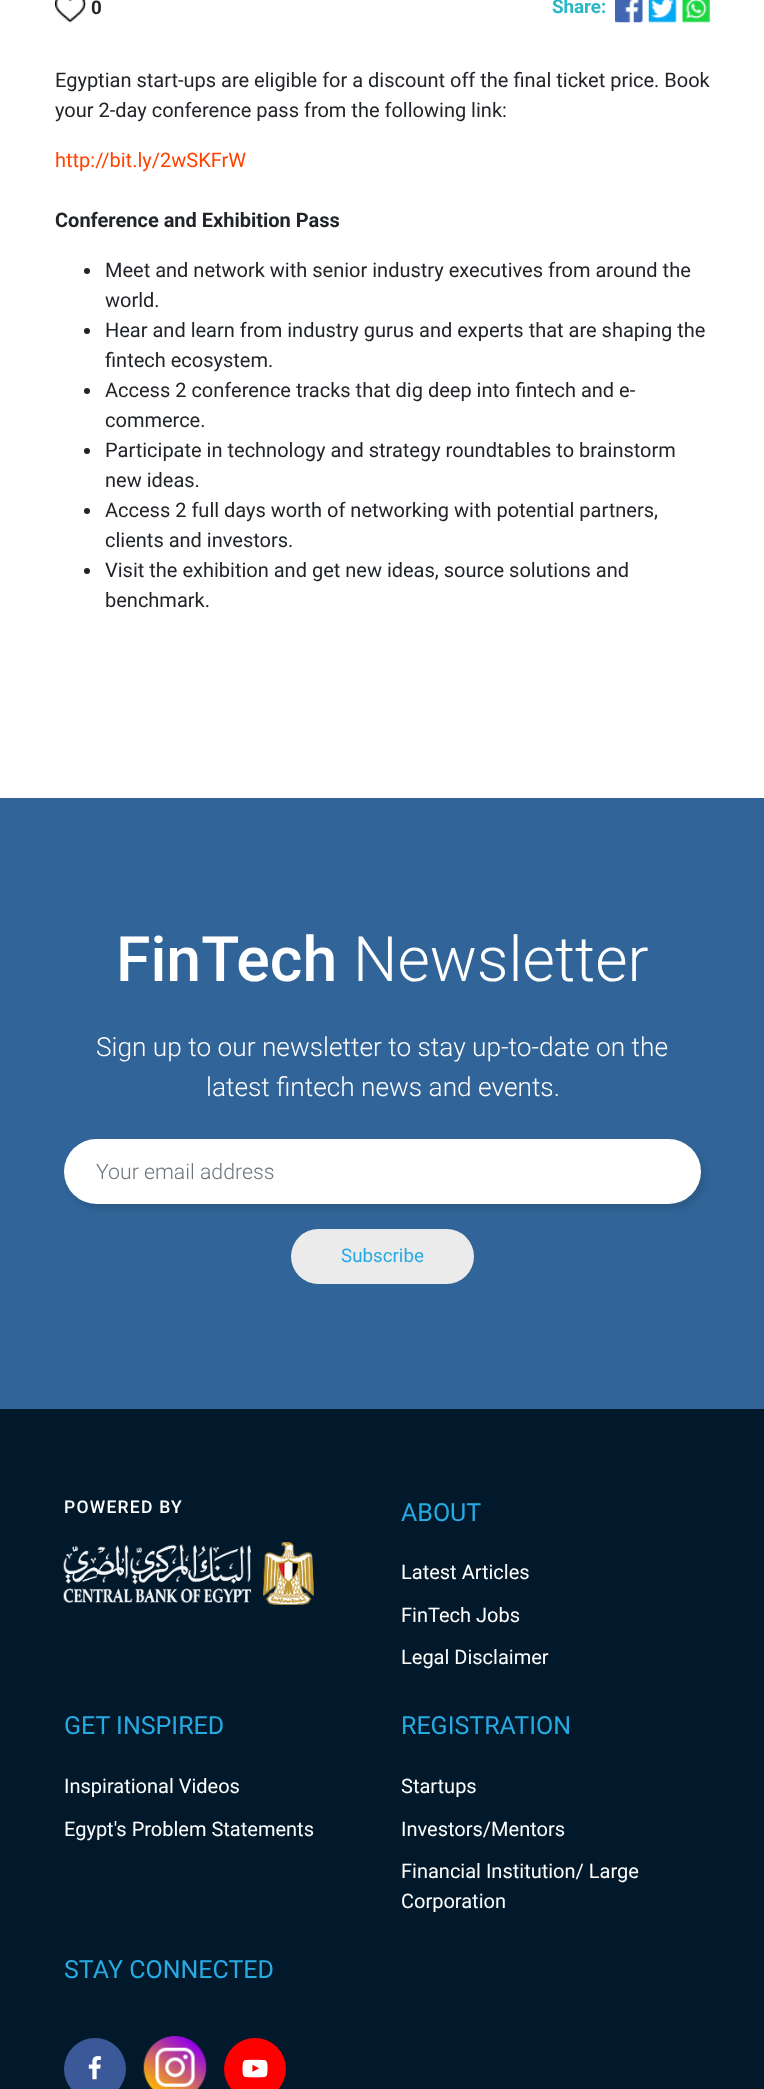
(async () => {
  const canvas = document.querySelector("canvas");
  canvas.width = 764;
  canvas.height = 2089;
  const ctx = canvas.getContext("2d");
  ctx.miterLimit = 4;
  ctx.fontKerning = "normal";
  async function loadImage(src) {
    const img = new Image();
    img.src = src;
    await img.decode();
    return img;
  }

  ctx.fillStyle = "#ffffff";
  ctx.fillRect(0, 0, 764, 2089);
  ctx.drawImage(await loadImage("img/1.png"), 55, 0, 32, 23);
  ctx.drawImage(await loadImage("img/2.png"), 615, 0, 28, 23);
  ctx.drawImage(await loadImage("img/3.png"), 648, 0, 29, 23);
  ctx.drawImage(await loadImage("img/4.png"), 682, 0, 28, 23);
  ctx.fillStyle = "#212529";
  ctx.beginPath();
  ctx.arc(87, 271, 3, 0, Math.PI * 2);
  ctx.fill();
  ctx.beginPath();
  ctx.arc(87, 331, 3, 0, Math.PI * 2);
  ctx.fill();
  ctx.beginPath();
  ctx.arc(87, 391, 3, 0, Math.PI * 2);
  ctx.fill();
  ctx.beginPath();
  ctx.arc(87, 451, 3, 0, Math.PI * 2);
  ctx.fill();
  ctx.beginPath();
  ctx.arc(87, 511, 3, 0, Math.PI * 2);
  ctx.fill();
  ctx.beginPath();
  ctx.arc(87, 571, 3, 0, Math.PI * 2);
  ctx.fill();
  ctx.fillStyle = "#316498";
  ctx.fillRect(0, 798, 764, 611);
  ctx.fillStyle = "rgba(0, 0, 0, 0.1)";
  ctx.filter = "blur(3px)";
  ctx.beginPath();
  ctx.roundRect(68, 1144, 637, 65, 32.5);
  ctx.fill();
  ctx.filter = "none";
  ctx.fillStyle = "#ffffff";
  ctx.beginPath();
  ctx.roundRect(64, 1139, 637, 65, 32.5);
  ctx.fill();
  ctx.fillStyle = "#ebebeb";
  ctx.beginPath();
  ctx.roundRect(291, 1229, 183, 55, 27.5);
  ctx.fill();
  ctx.fillStyle = "#02192b";
  ctx.fillRect(0, 1409, 764, 680);
  ctx.drawImage(await loadImage("img/5.png"), 63, 1542, 251, 63);
  ctx.fillStyle = "#3b5998";
  ctx.beginPath();
  ctx.arc(95, 2069, 31, 0, Math.PI * 2);
  ctx.fill();
  ctx.drawImage(await loadImage("img/6.png"), 88, 2056, 13, 24);
  ctx.drawImage(await loadImage("img/7.png"), 143, 2036, 64, 53);
  ctx.fillStyle = "#ff0000";
  ctx.beginPath();
  ctx.arc(255, 2069, 31, 0, Math.PI * 2);
  ctx.fill();
  ctx.drawImage(await loadImage("img/8.png"), 242, 2059, 26, 19);
  ctx.font = "bold 18.75px Roboto";
  ctx.fillStyle = "#212529";
  ctx.fillText("0", 91, 14);
  ctx.fillStyle = "#2ab7c8";
  ctx.fillText("Share:", 552, 13);
  ctx.font = "20px Roboto";
  ctx.fillStyle = "#212529";
  ctx.fillText("Egyptian start-ups are eligible for a discount off the final ticket price. Book", 55, 87);
  ctx.fillText("your 2-day conference pass from the following link:", 55, 117);
  ctx.fillStyle = "#ff4200";
  ctx.fillText("http://bit.ly/2wSKFrW", 55, 167);
  ctx.font = "bold 20px Roboto";
  ctx.fillStyle = "#212529";
  ctx.fillText("Conference and Exhibition Pass", 55, 227);
  ctx.font = "20px Roboto";
  for (const [text, x, y] of [
    ["Meet and network with senior industry executives from around the", 105, 277],
    ["world.", 105, 307],
    ["Hear and learn from industry gurus and experts that are shaping the", 105, 337],
    ["fintech ecosystem.", 105, 367],
    ["Access 2 conference tracks that dig deep into fintech and e-", 105, 397],
    ["commerce.", 105, 427],
    ["Participate in technology and strategy roundtables to brainstorm", 105, 457],
    ["new ideas.", 105, 487],
    ["Access 2 full days worth of networking with potential partners,", 105, 517],
    ["clients and investors.", 105, 547],
    ["Visit the exhibition and get new ideas, source solutions and", 105, 577],
    ["benchmark.", 105, 607],
  ]) {
    ctx.fillText(text, x, y);
  }
  ctx.font = "500 62.5px Roboto";
  ctx.fillStyle = "#ffffff";
  ctx.fillText("FinTech", 116, 981);
  ctx.font = "300 62.5px Roboto";
  ctx.fillText("Newsletter", 353, 981);
  ctx.font = "300 26.25px Roboto";
  ctx.fillText("Sign up to our newsletter to stay up-to-date on the", 96, 1056);
  ctx.fillText("latest fintech news and events.", 206, 1096);
  ctx.font = "300 21.25px Roboto";
  ctx.fillStyle = "#6c757d";
  ctx.fillText("Your email address", 96, 1179);
  ctx.font = "18.75px Roboto";
  ctx.fillStyle = "#27aae1";
  ctx.fillText("Subscribe", 341, 1262);
  ctx.letterSpacing = "1.25px";
  ctx.font = "500 17.5px Roboto";
  ctx.fillStyle = "#ffffff";
  ctx.fillText("POWERED BY", 64, 1513);
  ctx.letterSpacing = "0px";
  ctx.font = "25px Roboto";
  ctx.fillStyle = "#27aae1";
  ctx.fillText("ABOUT", 401, 1521);
  ctx.font = "20px Roboto";
  ctx.fillStyle = "#ffffff";
  for (const [text, x, y] of [
    ["Latest Articles", 401, 1579],
    ["FinTech Jobs", 401, 1622],
    ["Legal Disclaimer", 401, 1664],
  ]) {
    ctx.fillText(text, x, y);
  }
  ctx.font = "25px Roboto";
  ctx.fillStyle = "#27aae1";
  ctx.fillText("GET INSPIRED", 64, 1734);
  ctx.font = "20px Roboto";
  ctx.fillStyle = "#ffffff";
  ctx.fillText("Inspirational Videos", 64, 1793);
  ctx.fillText("Egypt's Problem Statements", 64, 1836);
  ctx.font = "25px Roboto";
  ctx.fillStyle = "#27aae1";
  ctx.fillText("REGISTRATION", 401, 1734);
  ctx.font = "20px Roboto";
  ctx.fillStyle = "#ffffff";
  for (const [text, x, y] of [
    ["Startups", 401, 1793],
    ["Investors/Mentors", 401, 1836],
    ["Financial Institution/ Large", 401, 1878],
    ["Corporation", 401, 1908],
  ]) {
    ctx.fillText(text, x, y);
  }
  ctx.font = "25px Roboto";
  ctx.fillStyle = "#27aae1";
  ctx.fillText("STAY CONNECTED", 64, 1978);
})();
